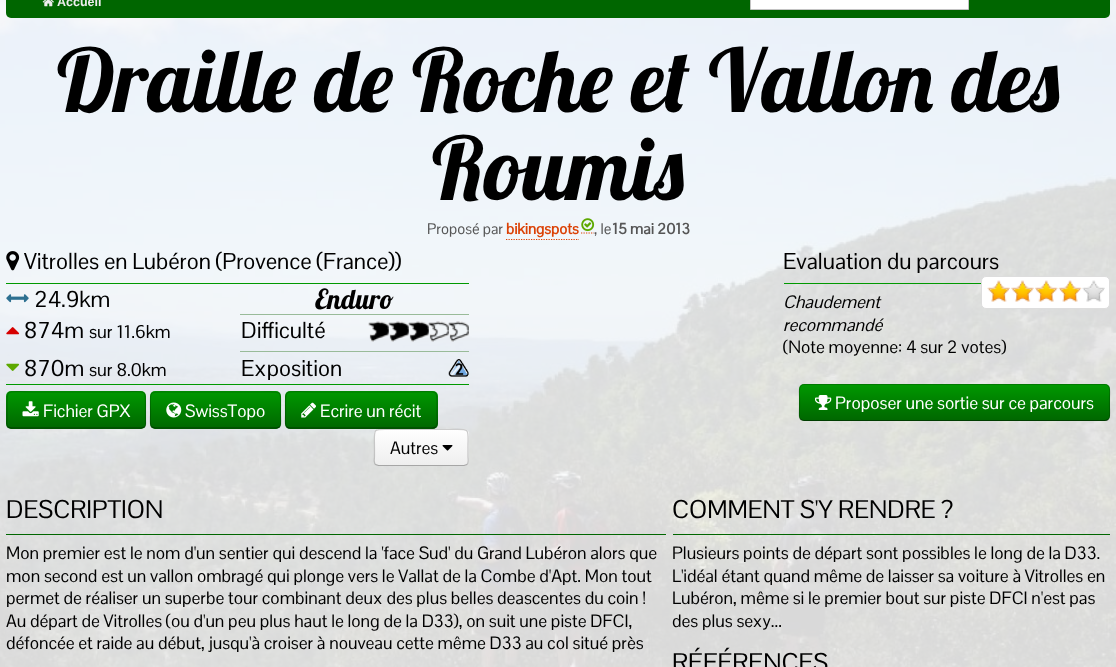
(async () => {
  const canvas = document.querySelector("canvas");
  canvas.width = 1116;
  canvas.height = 667;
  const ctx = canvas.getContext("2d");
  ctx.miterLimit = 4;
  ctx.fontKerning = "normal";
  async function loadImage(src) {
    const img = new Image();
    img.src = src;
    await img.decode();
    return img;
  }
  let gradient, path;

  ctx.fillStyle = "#ffffff";
  ctx.fillRect(0, 0, 1116, 667);
  ctx.drawImage(await loadImage("img/1.png"), 0, 0, 1116, 667);
  ctx.fillStyle = "rgba(255, 255, 255, 0.85)";
  ctx.fillRect(0, 0, 1116, 498);
  ctx.fillStyle = "#006600";
  ctx.beginPath();
  ctx.roundRect(6, -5, 1104, 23, 5);
  ctx.fill();
  ctx.drawImage(await loadImage("img/2.png"), 42, 0, 12, 7);
  ctx.fillStyle = "#ffffff";
  ctx.beginPath();
  ctx.rect(750.5, -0.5, 218, 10);
  ctx.fill();
  ctx.strokeStyle = "#c3c3c3";
  ctx.stroke();
  path = new Path2D("M506 239.5H579");
  ctx.strokeStyle = "#db4105";
  ctx.lineWidth = 1.2;
  ctx.setLineDash([1.25, 1.25]);
  ctx.stroke(path);
  path = new Path2D("M581 233H594");
  ctx.stroke(path);
  ctx.drawImage(await loadImage("img/3.png"), 581, 218, 14, 14);
  ctx.drawImage(await loadImage("img/4.png"), 6, 251, 14, 20);
  ctx.fillStyle = "#009900";
  ctx.fillRect(6, 283, 463, 1);
  ctx.drawImage(await loadImage("img/5.png"), 6, 294, 23, 9);
  ctx.fillStyle = "#99bb99";
  ctx.fillRect(240, 314, 229, 1);
  ctx.drawImage(await loadImage("img/6.png"), 6, 327, 14, 8);
  ctx.drawImage(await loadImage("img/7.png"), 368, 321, 21, 21);
  ctx.drawImage(await loadImage("img/8.png"), 388, 321, 21, 21);
  ctx.drawImage(await loadImage("img/9.png"), 408, 321, 21, 21);
  ctx.drawImage(await loadImage("img/10.png"), 428, 321, 21, 21);
  ctx.drawImage(await loadImage("img/11.png"), 448, 321, 21, 21);
  ctx.fillRect(240, 351, 229, 1);
  ctx.drawImage(await loadImage("img/12.png"), 6, 363, 14, 8);
  ctx.drawImage(await loadImage("img/13.png"), 448, 359, 21, 18);
  ctx.fillStyle = "#ffffff";
  ctx.beginPath();
  ctx.roundRect(981.5, 276.5, 128, 32, 4.5);
  ctx.fill();
  ctx.strokeStyle = "#dddddd";
  ctx.lineWidth = 1;
  ctx.setLineDash([]);
  ctx.stroke();
  ctx.drawImage(await loadImage("img/14.png"), 987, 280, 23, 22);
  ctx.drawImage(await loadImage("img/15.png"), 1011, 280, 23, 22);
  ctx.drawImage(await loadImage("img/16.png"), 1035, 280, 23, 22);
  ctx.drawImage(await loadImage("img/17.png"), 1058, 280, 24, 22);
  ctx.drawImage(await loadImage("img/18.png"), 1082, 280, 23, 22);
  ctx.fillStyle = "#009900";
  ctx.fillRect(784, 283, 197, 1);
  ctx.fillRect(6, 384, 463, 1);
  gradient = ctx.createLinearGradient(76, 391, 76, 429);
  gradient.addColorStop(0, "#009900");
  gradient.addColorStop(1, "#006600");
  ctx.fillStyle = gradient;
  ctx.beginPath();
  ctx.roundRect(6, 391, 140, 38, 5);
  ctx.fill();
  path = new Path2D("M144.5 427L141 428H11L8 427");
  ctx.strokeStyle = "#003e00";
  ctx.lineWidth = 1.2;
  ctx.stroke(path);
  path = new Path2D("M8 427C6 425 7 421.5 7 419V410C7 386.5 5 392 33 392H119.5C147.5 392 145.5 386.5 145.5 410V419C145.5 421.5 146.5 425 144.5 427");
  ctx.strokeStyle = "rgba(0, 0, 0, 0.2)";
  ctx.stroke(path);
  ctx.drawImage(await loadImage("img/19.png"), 22, 401, 17, 16);
  gradient = ctx.createLinearGradient(216, 391, 216, 429);
  gradient.addColorStop(0, "#009900");
  gradient.addColorStop(1, "#006600");
  ctx.fillStyle = gradient;
  ctx.beginPath();
  ctx.roundRect(150, 391, 131, 38, 5);
  ctx.fill();
  path = new Path2D("M279.5 427L276.5 428H175H155L152 427");
  ctx.strokeStyle = "#003e00";
  ctx.stroke(path);
  path = new Path2D("M152 427C149 424 150.5 417.5 150.5 414.5C150.5 387.5 146 392 175 392H256C285 392 280.5 387.5 280.5 414.5C280.5 417.5 282 424 279.5 427");
  ctx.strokeStyle = "rgba(0, 0, 0, 0.2)";
  ctx.stroke(path);
  ctx.drawImage(await loadImage("img/20.png"), 166, 402, 16, 16);
  gradient = ctx.createLinearGradient(361, 391, 361, 429);
  gradient.addColorStop(0, "#009900");
  gradient.addColorStop(1, "#006600");
  ctx.fillStyle = gradient;
  ctx.beginPath();
  ctx.roundRect(285, 391, 153, 38, 5);
  ctx.fill();
  path = new Path2D("M435.5 427C435 427.5 433.5 428 432.5 428H290C289 428 287.5 427.5 287 427");
  ctx.strokeStyle = "#003e00";
  ctx.stroke(path);
  path = new Path2D("M287 427C284 424 285.5 417.5 285.5 414.5C285.5 386 281.5 392 314 392H409C441 392 437 386 437 414.5C437 417.5 438.5 424 435.5 427");
  ctx.strokeStyle = "rgba(0, 0, 0, 0.2)";
  ctx.stroke(path);
  ctx.drawImage(await loadImage("img/21.png"), 301, 402, 15, 16);
  gradient = ctx.createLinearGradient(421, 429, 421, 466);
  gradient.addColorStop(0, "#ffffff");
  gradient.addColorStop(1, "#eeeeee");
  ctx.fillStyle = gradient;
  ctx.beginPath();
  ctx.roundRect(374, 429, 95, 37, 5);
  ctx.fill();
  path = new Path2D("M467 464.5L464 465.5H378.5L375.5 464.5");
  ctx.strokeStyle = "rgba(0, 0, 0, 0.3)";
  ctx.stroke(path);
  path = new Path2D("M375.5 464.5C373.5 462.5 374.5 459 374.5 456.5V447.5C374.5 427 371.5 429.5 393 429.5H449.5C471 429.5 468 427 468 447.5V456.5C468 459 469 462.5 467 464.5");
  ctx.strokeStyle = "rgba(0, 0, 0, 0.2)";
  ctx.stroke(path);
  ctx.drawImage(await loadImage("img/22.png"), 442, 445, 11, 6);
  gradient = ctx.createLinearGradient(954, 384, 954, 421);
  gradient.addColorStop(0, "#009900");
  gradient.addColorStop(1, "#006600");
  ctx.fillStyle = gradient;
  ctx.beginPath();
  ctx.roundRect(799, 384, 311, 37, 5);
  ctx.fill();
  path = new Path2D("M1108 419.5C1107.5 420 1106 420.5 1105 420.5H804C802.5 420.5 801.5 420 800.5 419.5");
  ctx.strokeStyle = "rgba(0, 0, 0, 0.4)";
  ctx.stroke(path);
  path = new Path2D("M800.5 419.5C798 416.5 799.5 410 799.5 407V398C799.5 394.5 797.5 384.5 804 384.5H1105C1111.5 384.5 1109.5 394.5 1109.5 398V407C1109.5 410 1111 416.5 1108 419.5");
  ctx.strokeStyle = "rgba(0, 0, 0, 0.2)";
  ctx.stroke(path);
  ctx.drawImage(await loadImage("img/23.png"), 815, 395, 17, 15);
  for (const [x, y, w, h, color] of [
    [0, 498, 1116, 169, "rgba(255, 255, 255, 0.85)"],
    [6, 534, 660, 1, "#006600"],
    [673, 534, 437, 1, "#006600"],
  ]) {
    ctx.fillStyle = color;
    ctx.fillRect(x, y, w, h);
  }
  ctx.font = "bold 12.5px Liberation Sans";
  ctx.fillStyle = "#eeeeee";
  ctx.fillText("Accueil", 57, 6);
  ctx.font = "87.5px Lobster";
  ctx.fillStyle = "#000000";
  ctx.fillText("Draille de Roche et Vallon des", 57, 112);
  ctx.fillText("Roumis", 432, 200);
  ctx.font = "15px Pontano Sans";
  ctx.fillStyle = "#555555";
  ctx.fillText("Proposé par", 427, 234);
  ctx.font = "bold 15px Pontano Sans";
  ctx.fillStyle = "#db4105";
  ctx.fillText("bikingspots", 506, 234);
  ctx.font = "15px Pontano Sans";
  ctx.fillStyle = "#555555";
  ctx.fillText(", le", 594, 234);
  ctx.font = "bold 15px Pontano Sans";
  ctx.fillText("15 mai 2013", 612, 234);
  ctx.font = "22.5px Pontano Sans";
  ctx.fillStyle = "#000000";
  ctx.fillText("Vitrolles en Lubéron (Provence (France))", 24, 269);
  ctx.fillText("24.9km", 34, 307);
  ctx.font = "27.5px Lobster";
  ctx.fillText("Enduro", 315, 309);
  ctx.font = "22.5px Pontano Sans";
  ctx.fillText("874m", 24, 338);
  ctx.font = "18px Pontano Sans";
  ctx.fillText("sur 11.6km", 89, 338);
  ctx.font = "22.5px Pontano Sans";
  ctx.fillText("Difficulté", 241, 338);
  ctx.fillText("870m", 24, 376);
  ctx.font = "18px Pontano Sans";
  ctx.fillText("sur 8.0km", 89, 376);
  ctx.font = "22.5px Pontano Sans";
  ctx.fillText("Exposition", 241, 376);
  ctx.fillText("Evaluation du parcours", 783, 269);
  ctx.font = "italic 17.5px Pontano Sans";
  ctx.fillText("Chaudement", 783, 308);
  ctx.fillText("recommandé", 783, 331);
  ctx.font = "17.5px Pontano Sans";
  ctx.fillText("(Note moyenne: 4 sur 2 votes)", 783, 353);
  ctx.fillStyle = "#ffffff";
  for (const [text, x, y] of [
    ["Fichier GPX", 43, 417],
    ["SwissTopo", 185, 417],
    ["Ecrire un récit", 320, 417],
  ]) {
    ctx.fillText(text, x, y);
  }
  ctx.fillStyle = "#000000";
  ctx.fillText("Autres", 390, 454);
  ctx.fillStyle = "#ffffff";
  ctx.fillText("Proposer une sortie sur ce parcours", 835, 409);
  ctx.font = "25px Pontano Sans";
  ctx.fillStyle = "#000000";
  ctx.fillText("DESCRIPTION", 6, 518);
  ctx.font = "17.5px Pontano Sans";
  for (const [text, x, y] of [
    ["Mon premier est le nom d'un sentier qui descend la 'face Sud' du Grand Lubéron alors que", 6, 559],
    ["mon second est un vallon ombragé qui plonge vers le Vallat de la Combe d'Apt. Mon tout", 6, 582],
    ["permet de réaliser un superbe tour combinant deux des plus belles deascentes du coin !", 6, 604],
    ["Au départ de Vitrolles (ou d'un peu plus haut le long de la D33), on suit une piste DFCI,", 6, 627],
    ["défoncée et raide au début, jusqu'à croiser à nouveau cette même D33 au col situé près", 6, 649],
  ]) {
    ctx.fillText(text, x, y);
  }
  ctx.font = "25px Pontano Sans";
  ctx.fillText("COMMENT S'Y RENDRE ?", 672, 518);
  ctx.font = "17.5px Pontano Sans";
  for (const [text, x, y] of [
    ["Plusieurs points de départ sont possibles le long de la D33.", 672, 559],
    ["L'idéal étant quand même de laisser sa voiture à Vitrolles en", 672, 582],
    ["Lubéron, même si le premier bout sur piste DFCI n'est pas", 672, 604],
    ["des plus sexy...", 672, 627],
  ]) {
    ctx.fillText(text, x, y);
  }
  ctx.font = "25px Pontano Sans";
  ctx.fillText("RÉFÉRENCES", 672, 671);
})();
